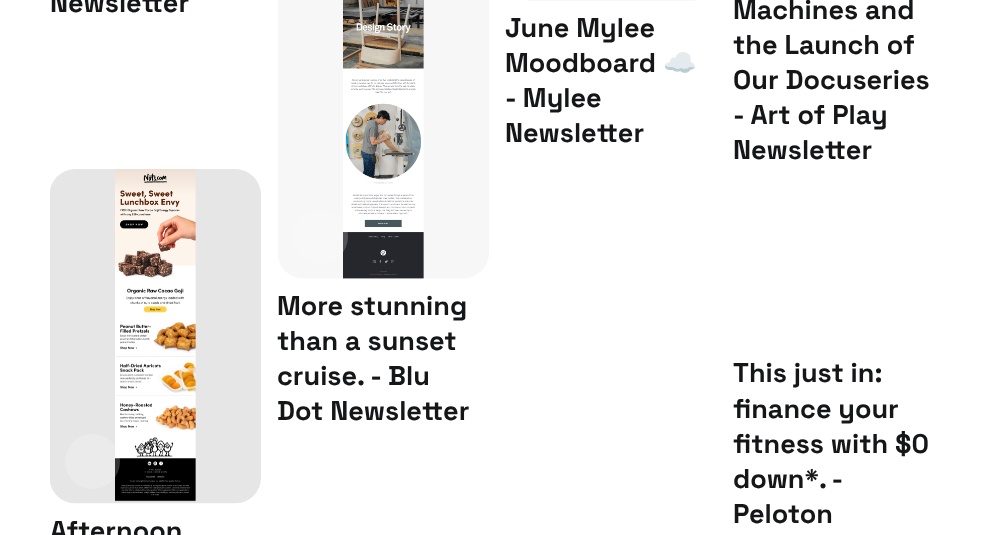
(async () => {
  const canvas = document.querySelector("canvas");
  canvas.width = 994;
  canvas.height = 535;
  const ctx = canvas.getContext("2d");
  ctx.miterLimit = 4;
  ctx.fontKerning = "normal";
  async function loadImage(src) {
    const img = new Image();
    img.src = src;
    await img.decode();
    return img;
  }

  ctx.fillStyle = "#ffffff";
  ctx.fillRect(0, 0, 994, 535);
  ctx.drawImage(await loadImage("img/1.png"), 527, 0, 169, 1);
  ctx.drawImage(await loadImage("img/2.png"), 278, 0, 211, 279);
  ctx.fillStyle = "rgba(255, 255, 255, 0.2)";
  ctx.beginPath();
  ctx.arc(320.5, 236.5, 27.5, 0, Math.PI * 2);
  ctx.fill();
  ctx.drawImage(await loadImage("img/3.png"), 50, 169, 211, 335);
  ctx.beginPath();
  ctx.arc(92.5, 461.5, 27.5, 0, Math.PI * 2);
  ctx.fill();
  ctx.font = "bold 27px Space Grotesk";
  ctx.fillStyle = "#151618";
  for (const [text, x, y] of [
    ["Newsletter", 50, 12],
    ["June Mylee", 505, 37],
    ["Moodboard", 505, 72],
  ]) {
    ctx.fillText(text, x, y);
  }
  ctx.font = "bold 27px Noto Color Emoji";
  ctx.fillText("☁️", 663, 72);
  ctx.font = "bold 27px Space Grotesk";
  for (const [text, x, y] of [
    ["- Mylee", 505, 107],
    ["Newsletter", 505, 142],
    ["Machines and", 733, 19],
    ["the Launch of", 733, 54],
    ["Our Docuseries", 733, 89],
    ["- Art of Play", 733, 124],
    ["Newsletter", 733, 159],
    ["More stunning", 277, 315],
    ["than a sunset", 277, 350],
    ["cruise. - Blu", 277, 385],
    ["Dot Newsletter", 277, 420],
    ["This just in:", 733, 382],
    ["finance your", 733, 418],
    ["fitness with $0", 733, 453],
  ]) {
    ctx.fillText(text, x, y);
  }
  ctx.wordSpacing = "-1px";
  ctx.fillText("down*. -", 733, 488);
  ctx.wordSpacing = "0px";
  ctx.fillText("Peloton", 733, 523);
  ctx.fillText("Afternoon", 50, 540);
})();
